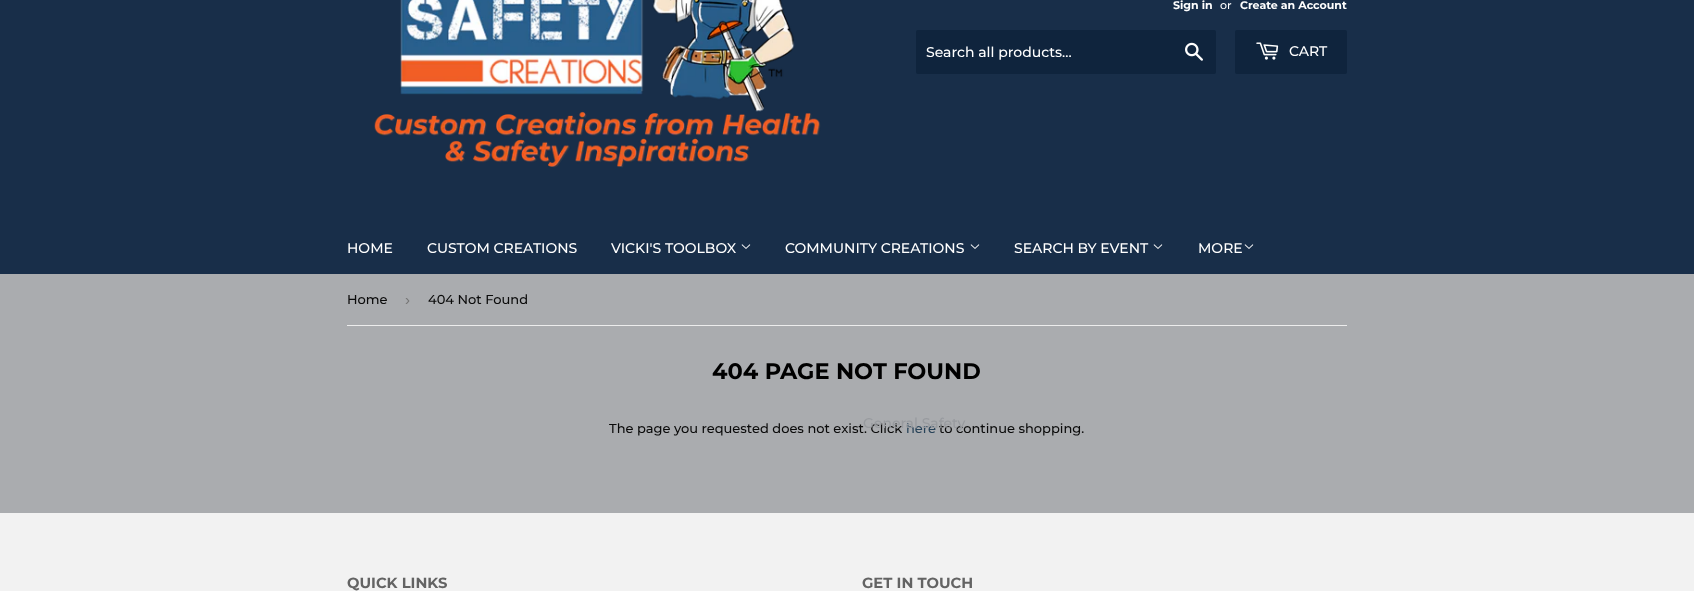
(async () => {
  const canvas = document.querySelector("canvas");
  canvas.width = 1694;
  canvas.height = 591;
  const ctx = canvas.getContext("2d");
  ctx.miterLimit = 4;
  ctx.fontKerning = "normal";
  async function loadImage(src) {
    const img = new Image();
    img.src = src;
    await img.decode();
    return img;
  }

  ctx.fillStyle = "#aaacaf";
  ctx.fillRect(0, 0, 1694, 591);
  ctx.fillStyle = "#182e49";
  ctx.fillRect(0, 0, 1694, 274);
  ctx.drawImage(await loadImage("img/1.png"), 374, 0, 447, 168);
  ctx.fillStyle = "#0f243d";
  ctx.beginPath();
  ctx.roundRect(916, 30, 300, 44, 2);
  ctx.fill();
  ctx.drawImage(await loadImage("img/2.png"), 1185, 42, 18, 19);
  ctx.beginPath();
  ctx.roundRect(1235, 30, 112, 44, 2);
  ctx.fill();
  ctx.drawImage(await loadImage("img/3.png"), 1256, 42, 23, 18);
  ctx.drawImage(await loadImage("img/4.png"), 741, 244, 10, 5);
  ctx.drawImage(await loadImage("img/4.png"), 970, 244, 10, 5);
  ctx.drawImage(await loadImage("img/4.png"), 1244, 244, 10, 5);
  ctx.drawImage(await loadImage("img/4.png"), 1153, 244, 10, 5);
  ctx.fillStyle = "#ececec";
  ctx.fillRect(347, 325, 1000, 1);
  ctx.fillStyle = "#f2f2f2";
  ctx.fillRect(0, 513, 1694, 78);
  ctx.font = "bold 11px Montserrat";
  ctx.fillStyle = "#ffffff";
  ctx.fillText("Sign in", 1173, 9);
  ctx.font = "500 11px Montserrat";
  ctx.fillText("or", 1220, 9);
  ctx.font = "bold 11px Montserrat";
  ctx.fillText("Create an Account", 1240, 9);
  ctx.font = "500 14px Montserrat";
  for (const [text, x, y] of [
    ["Search all products...", 926, 57],
    ["CART", 1289, 56],
    ["HOME", 347, 253],
    ["CUSTOM CREATIONS", 427, 253],
    ["VICKI'S TOOLBOX", 611, 253],
    ["COMMUNITY CREATIONS", 785, 253],
    ["MORE", 1198, 253],
    ["SEARCH BY EVENT", 1014, 253],
  ]) {
    ctx.fillText(text, x, y);
  }
  ctx.font = "500 13px Montserrat";
  ctx.fillStyle = "#0b0b0b";
  ctx.fillText("Home", 347, 304);
  ctx.font = "15px Liberation Sans";
  ctx.fillStyle = "#767676";
  ctx.fillText("›", 405, 305);
  ctx.font = "500 13px Montserrat";
  ctx.fillStyle = "#0b0b0b";
  ctx.fillText("404 Not Found", 428, 304);
  ctx.font = "bold 22.5px Montserrat";
  ctx.fillStyle = "#000000";
  ctx.fillText("404 PAGE NOT FOUND", 712, 379);
  ctx.font = "500 13px Montserrat";
  ctx.fillStyle = "#0b0b0b";
  ctx.fillText("The page you requested does not exist. Click", 609, 433);
  ctx.fillStyle = "#284359";
  ctx.fillText("here", 906, 433);
  ctx.fillStyle = "#0b0b0b";
  ctx.fillText("to continue shopping.", 939, 433);
  ctx.font = "500 14px Montserrat";
  ctx.fillStyle = "#989b9f";
  ctx.fillText("General Safety", 863, 428);
  ctx.font = "bold 14.75px Montserrat";
  ctx.fillStyle = "#636363";
  ctx.fillText("QUICK LINKS", 347, 588);
  ctx.fillText("GET IN TOUCH", 862, 588);
})();
